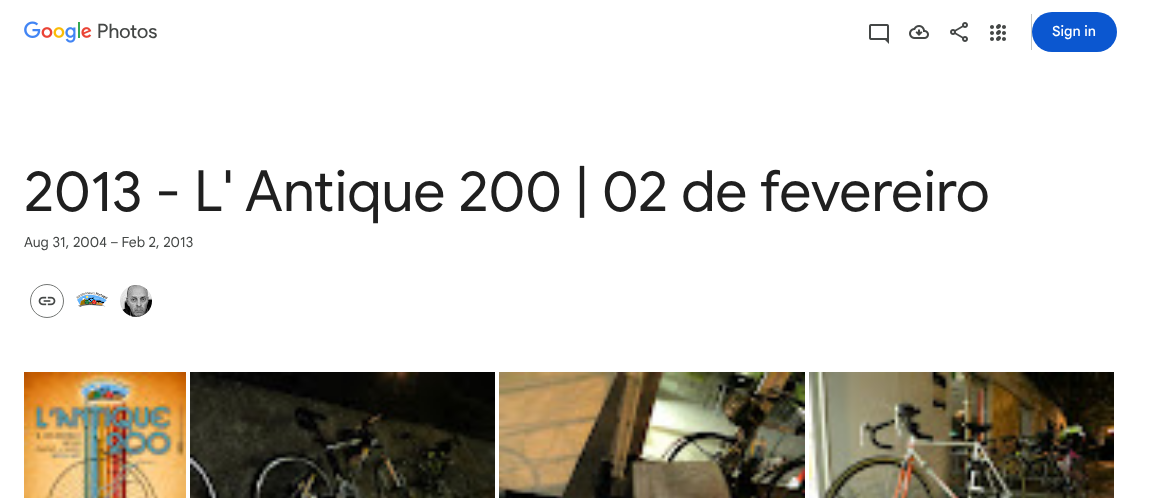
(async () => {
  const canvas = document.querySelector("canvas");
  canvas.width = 1153;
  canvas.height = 498;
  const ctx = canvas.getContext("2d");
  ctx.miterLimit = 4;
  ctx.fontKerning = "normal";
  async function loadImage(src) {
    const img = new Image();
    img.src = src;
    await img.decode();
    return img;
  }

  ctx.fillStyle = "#ffffff";
  ctx.fillRect(0, 0, 1153, 498);
  ctx.drawImage(await loadImage("img/1.png"), 24, 21, 68, 22);
  ctx.drawImage(await loadImage("img/2.png"), 869, 24, 20, 20);
  ctx.drawImage(await loadImage("img/3.png"), 909, 25, 20, 14);
  ctx.drawImage(await loadImage("img/4.png"), 950, 22, 18, 20);
  ctx.drawImage(await loadImage("img/5.png"), 997, 24, 4, 16);
  ctx.fillStyle = "#c4c7c5";
  ctx.fillRect(1031, 14, 1, 36);
  ctx.beginPath();
  ctx.arc(47, 301, 16.5, 0, Math.PI * 2);
  ctx.strokeStyle = "#747775";
  ctx.stroke();
  ctx.drawImage(await loadImage("img/6.png"), 38, 296, 18, 10);
  ctx.drawImage(await loadImage("img/7.png"), 76, 292, 32, 15);
  ctx.drawImage(await loadImage("img/8.png"), 120, 285, 32, 32);
  ctx.drawImage(await loadImage("img/9.png"), 24, 372, 162, 126);
  ctx.drawImage(await loadImage("img/10.png"), 190, 372, 305, 126);
  ctx.drawImage(await loadImage("img/11.png"), 499, 372, 306, 126);
  ctx.drawImage(await loadImage("img/12.png"), 809, 372, 305, 126);
  ctx.drawImage(await loadImage("img/13.png"), 990, 25, 16, 16);
  ctx.fillStyle = "#0b57d0";
  ctx.beginPath();
  ctx.roundRect(1032, 12, 85, 40, 20);
  ctx.fill();
  ctx.font = "20px Product Sans";
  ctx.fillStyle = "#444746";
  ctx.fillText("Photos", 97, 38);
  ctx.font = "57px Google Sans";
  ctx.fillStyle = "#1f1f1f";
  ctx.fillText("2013 - L' Antique 200 | 02 de fevereiro", 24, 211);
  ctx.font = "14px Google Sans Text";
  ctx.fillStyle = "#444746";
  ctx.fillText("Aug 31, 2004 – Feb 2, 2013", 24, 247);
  ctx.font = "500 14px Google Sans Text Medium";
  ctx.fillStyle = "#ffffff";
  ctx.fillText("Sign in", 1052, 36);
})();
